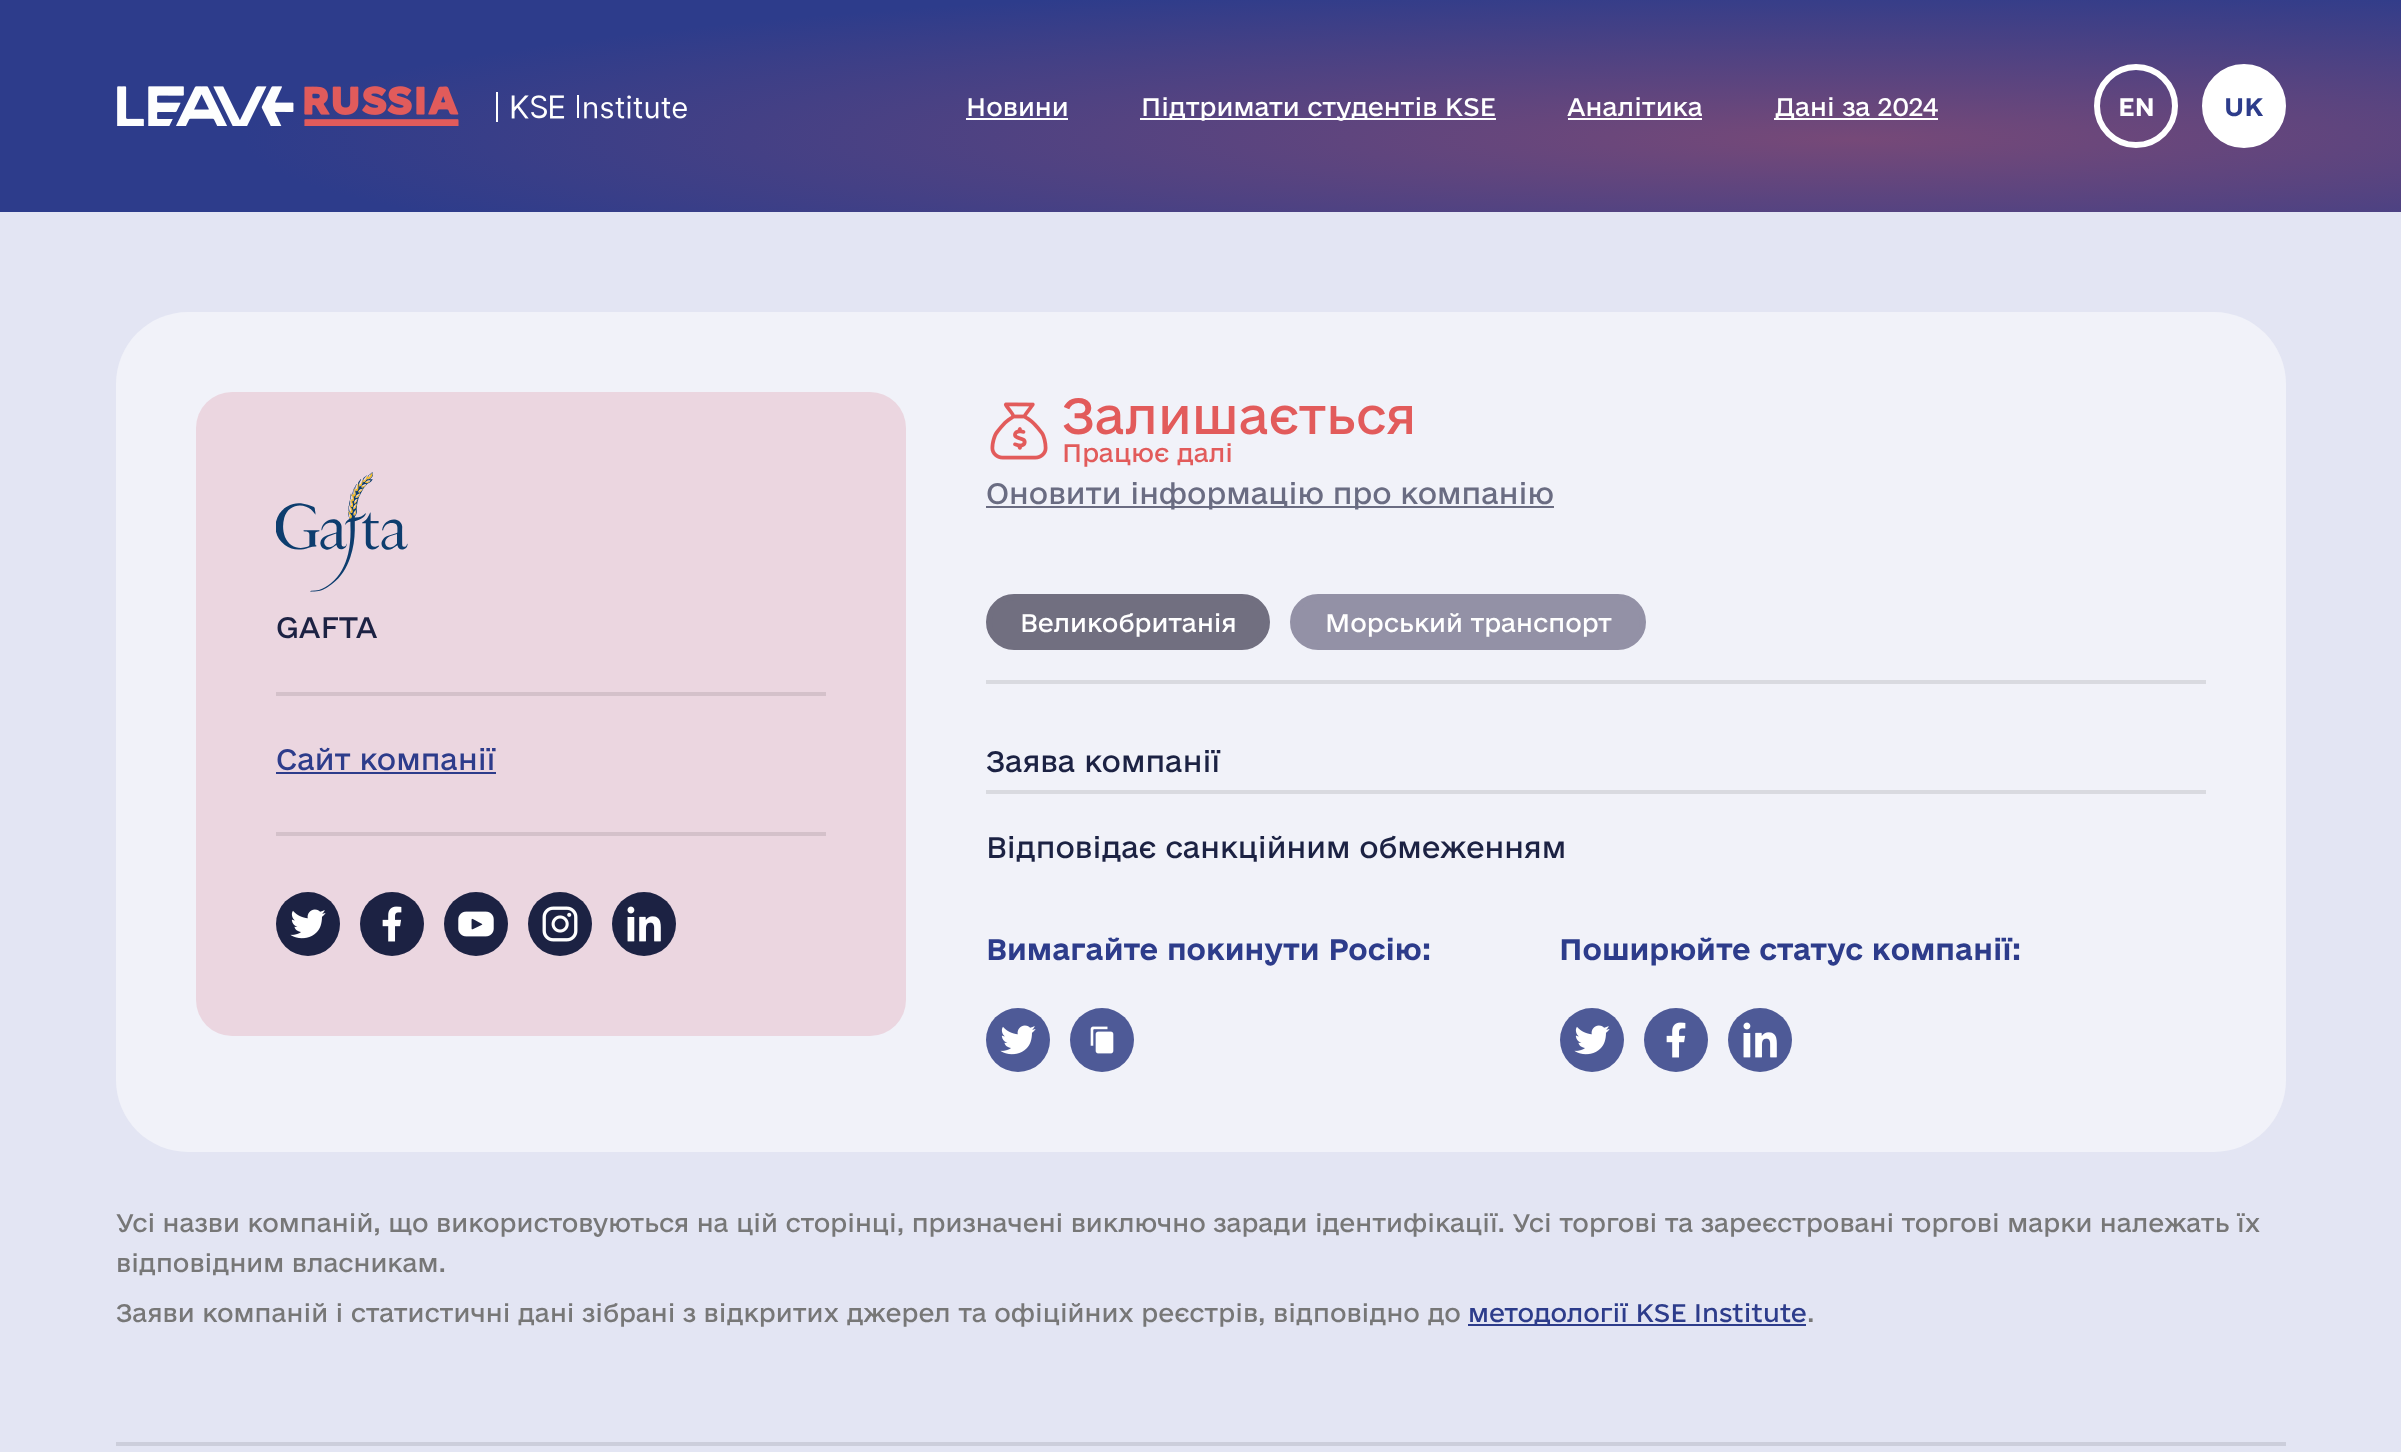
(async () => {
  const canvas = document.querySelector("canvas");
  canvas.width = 2401;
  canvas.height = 1452;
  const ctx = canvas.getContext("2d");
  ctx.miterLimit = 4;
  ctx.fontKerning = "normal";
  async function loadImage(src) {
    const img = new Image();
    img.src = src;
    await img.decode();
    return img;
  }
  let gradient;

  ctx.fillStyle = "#e3e5f3";
  ctx.fillRect(0, 0, 2401, 1452);
  gradient = ctx.createRadialGradient(1853, 1391.3, 0, 1853, 1391.3, 3223);
  gradient.addColorStop(0, "#764978");
  gradient.addColorStop(0.5, "#2d3c8b");
  ctx.fillStyle = gradient;
  ctx.beginPath();
  ctx.rect(0, 0, 2401, 212);
  ctx.save();
  ctx.clip();
  ctx.scale(1, 322 / 3223);
  ctx.fillRect(0, 0, 2401, 14534);
  ctx.restore();
  ctx.drawImage(await loadImage("img/1.png"), 117, 86, 570, 40);
  for (const [x, y, w, h, color] of [
    [966, 118, 102, 2, "#ffffff"],
    [1140, 118, 356, 2, "#ffffff"],
    [1568, 118, 134, 2, "#ffffff"],
    [1774, 118, 164, 2, "#ffffff"],
  ]) {
    ctx.fillStyle = color;
    ctx.fillRect(x, y, w, h);
  }
  ctx.beginPath();
  ctx.arc(2136, 106, 39, 0, Math.PI * 2);
  ctx.strokeStyle = "#ffffff";
  ctx.lineWidth = 6;
  ctx.stroke();
  ctx.beginPath();
  ctx.arc(2244, 106, 39, 0, Math.PI * 2);
  ctx.fill();
  ctx.stroke();
  ctx.fillStyle = "#f1f2f9";
  ctx.beginPath();
  ctx.roundRect(116, 312, 2170, 840, 72);
  ctx.fill();
  ctx.fillStyle = "#ebd6e0";
  ctx.beginPath();
  ctx.roundRect(196, 392, 710, 644, 36);
  ctx.fill();
  ctx.drawImage(await loadImage("img/2.png"), 276, 472, 132, 120);
  for (const [x, y, w, h, color] of [
    [276, 692, 550, 4, "#d4c1ca"],
    [276, 832, 550, 4, "#d4c1ca"],
    [276, 772, 220, 2, "#2d3c8b"],
  ]) {
    ctx.fillStyle = color;
    ctx.fillRect(x, y, w, h);
  }
  ctx.fillStyle = "#1c2243";
  ctx.beginPath();
  ctx.arc(308, 924, 32, 0, Math.PI * 2);
  ctx.fill();
  ctx.drawImage(await loadImage("img/3.png"), 290, 909, 36, 30);
  ctx.beginPath();
  ctx.arc(392, 924, 32, 0, Math.PI * 2);
  ctx.fill();
  ctx.drawImage(await loadImage("img/4.png"), 382, 906, 20, 36);
  ctx.beginPath();
  ctx.arc(476, 924, 32, 0, Math.PI * 2);
  ctx.fill();
  ctx.drawImage(await loadImage("img/5.png"), 458, 911, 36, 26);
  ctx.beginPath();
  ctx.arc(560, 924, 32, 0, Math.PI * 2);
  ctx.fill();
  ctx.drawImage(await loadImage("img/6.png"), 542, 906, 36, 36);
  ctx.beginPath();
  ctx.arc(644, 924, 32, 0, Math.PI * 2);
  ctx.fill();
  ctx.drawImage(await loadImage("img/7.png"), 627, 906, 34, 36);
  ctx.drawImage(await loadImage("img/8.png"), 990, 402, 58, 58);
  ctx.fillStyle = "#6a6c82";
  ctx.fillRect(986, 506, 568, 2);
  ctx.fillStyle = "#d9dae0";
  ctx.fillRect(986, 680, 1220, 4);
  ctx.fillStyle = "#716f80";
  ctx.beginPath();
  ctx.roundRect(989, 597, 278, 50, 25);
  ctx.fill();
  ctx.strokeStyle = "#716f80";
  ctx.stroke();
  ctx.fillStyle = "#9391a6";
  ctx.beginPath();
  ctx.roundRect(1293, 597, 350, 50, 25);
  ctx.fill();
  ctx.strokeStyle = "#9391a6";
  ctx.stroke();
  ctx.fillStyle = "#d9dae0";
  ctx.fillRect(986, 790, 1220, 4);
  ctx.fillStyle = "#4e5a97";
  ctx.beginPath();
  ctx.arc(1018, 1040, 32, 0, Math.PI * 2);
  ctx.fill();
  ctx.drawImage(await loadImage("img/9.png"), 1000, 1025, 36, 30);
  ctx.beginPath();
  ctx.arc(1102, 1040, 32, 0, Math.PI * 2);
  ctx.fill();
  ctx.drawImage(await loadImage("img/10.png"), 1090, 1026, 24, 28);
  ctx.beginPath();
  ctx.arc(1592, 1040, 32, 0, Math.PI * 2);
  ctx.fill();
  ctx.drawImage(await loadImage("img/9.png"), 1574, 1025, 36, 30);
  ctx.beginPath();
  ctx.arc(1676, 1040, 32, 0, Math.PI * 2);
  ctx.fill();
  ctx.drawImage(await loadImage("img/11.png"), 1666, 1022, 20, 36);
  ctx.beginPath();
  ctx.arc(1760, 1040, 32, 0, Math.PI * 2);
  ctx.fill();
  ctx.drawImage(await loadImage("img/12.png"), 1743, 1022, 34, 36);
  ctx.fillStyle = "#2d3c8b";
  ctx.fillRect(1468, 1324, 338, 2);
  ctx.fillStyle = "#cccedb";
  ctx.fillRect(116, 1442, 2170, 4);
  ctx.font = "24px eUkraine";
  ctx.fillStyle = "#ffffff";
  for (const [text, x, y] of [
    ["Новини", 966, 116],
    ["Підтримати студентів KSE", 1141, 116],
    ["Аналітика", 1567, 116],
    ["Дані за 2024", 1775, 116],
  ]) {
    ctx.fillText(text, x, y);
  }
  ctx.font = "bold 24px eUkraine";
  ctx.fillText("EN", 2118, 116);
  ctx.fillStyle = "#2d3c8b";
  ctx.fillText("UK", 2224, 116);
  ctx.font = "28px eUkraine";
  ctx.fillStyle = "#1c2243";
  ctx.fillText("GAFTA", 276, 638);
  ctx.fillStyle = "#2d3c8b";
  ctx.fillText("Сайт компанії", 276, 770);
  ctx.font = "48px eUkraine";
  ctx.fillStyle = "#e25b5b";
  ctx.fillText("Залишається", 1062, 434);
  ctx.font = "24px eUkraine";
  ctx.fillText("Працює далі", 1062, 462);
  ctx.font = "28px eUkraine";
  ctx.fillStyle = "#6a6c82";
  ctx.fillText("Оновити інформацію про компанію", 986, 504);
  ctx.font = "24px eUkraine";
  ctx.fillStyle = "#ffffff";
  ctx.fillText("Великобританія", 1020, 632);
  ctx.fillText("Морський транспорт", 1325, 632);
  ctx.font = "28px eUkraine";
  ctx.fillStyle = "#1c2243";
  ctx.fillText("Заява компанії", 986, 772);
  ctx.fillText("Відповідає санкційним обмеженням", 986, 858);
  ctx.font = "bold 28px eUkraine";
  ctx.fillStyle = "#2d3c8b";
  ctx.fillText("Вимагайте покинути Росію:", 986, 960);
  ctx.fillText("Поширюйте статус компанії:", 1559, 960);
  ctx.font = "24px eUkraine";
  ctx.fillStyle = "#777777";
  for (const [text, x, y] of [
    ["Усі назви компаній, що використовуються на цій сторінці, призначені виключно заради ідентифікації. Усі торгові та зареєстровані торгові марки належать їх", 116, 1232],
    ["відповідним власникам.", 116, 1272],
    ["Заяви компаній i статистичні дані зібрані з відкритих джерел та офіційних реєстрів, відповідно до", 116, 1322],
  ]) {
    ctx.fillText(text, x, y);
  }
  ctx.fillStyle = "#2d3c8b";
  ctx.fillText("методології KSE Institute", 1468, 1322);
  ctx.fillStyle = "#777777";
  ctx.fillText(".", 1807, 1322);
})();
